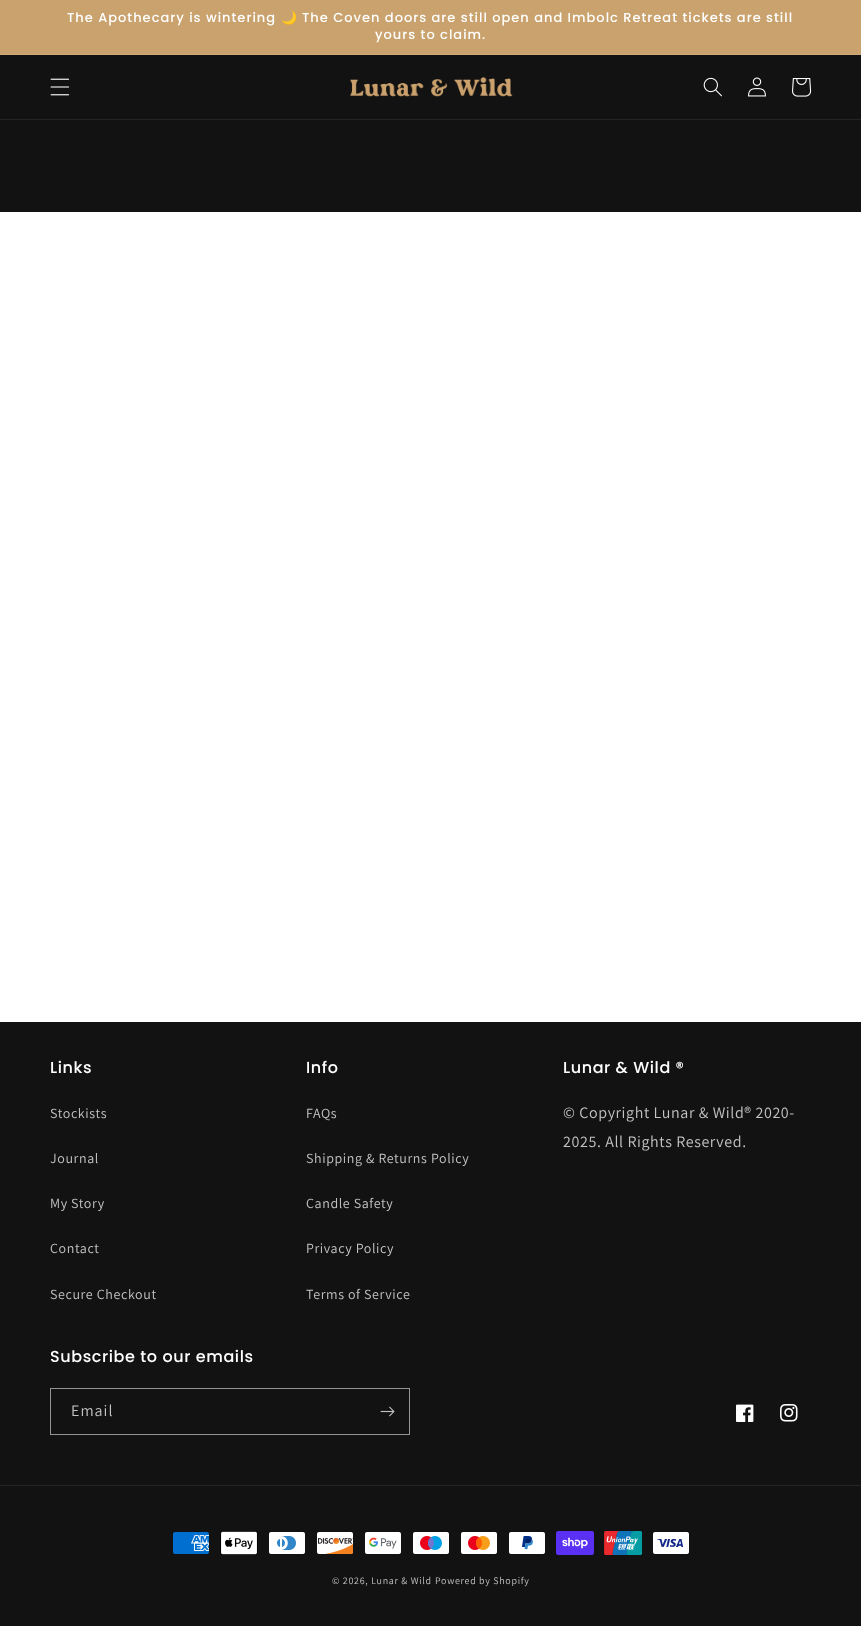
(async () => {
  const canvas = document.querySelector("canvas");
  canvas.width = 861;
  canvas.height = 1626;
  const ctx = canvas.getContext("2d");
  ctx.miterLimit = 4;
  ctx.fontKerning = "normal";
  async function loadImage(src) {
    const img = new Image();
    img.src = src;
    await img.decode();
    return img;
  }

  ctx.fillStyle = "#ffffff";
  ctx.fillRect(0, 0, 861, 1626);
  for (const [x, y, w, h, color] of [
    [0, 0, 861, 54, "#c9a26e"],
    [0, 54, 861, 1, "#cda97a"],
    [0, 55, 861, 64, "#121212"],
    [0, 119, 861, 1, "#252525"],
  ]) {
    ctx.fillStyle = color;
    ctx.fillRect(x, y, w, h);
  }
  ctx.drawImage(await loadImage("img/1.png"), 50, 78, 20, 18);
  ctx.drawImage(await loadImage("img/2.png"), 350, 77, 163, 20);
  ctx.drawImage(await loadImage("img/3.png"), 703, 77, 19, 20);
  ctx.drawImage(await loadImage("img/4.png"), 748, 77, 18, 20);
  ctx.drawImage(await loadImage("img/5.png"), 792, 78, 20, 19);
  ctx.fillStyle = "#121212";
  ctx.fillRect(0, 120, 861, 92);
  ctx.fillRect(0, 1022, 861, 604);
  ctx.strokeStyle = "#949494";
  ctx.strokeRect(50.5, 1388.5, 359, 46);
  ctx.drawImage(await loadImage("img/6.png"), 380, 1406, 15, 11);
  ctx.drawImage(await loadImage("img/7.png"), 736, 1404, 18, 18);
  ctx.drawImage(await loadImage("img/8.png"), 780, 1404, 18, 18);
  ctx.fillStyle = "#252525";
  ctx.fillRect(0, 1485, 861, 1);
  ctx.drawImage(await loadImage("img/9.png"), 173, 1532, 36, 22);
  ctx.drawImage(await loadImage("img/10.png"), 220, 1531, 38, 24);
  ctx.drawImage(await loadImage("img/11.png"), 269, 1532, 36, 22);
  ctx.drawImage(await loadImage("img/12.png"), 317, 1532, 36, 22);
  ctx.drawImage(await loadImage("img/13.png"), 365, 1532, 36, 22);
  ctx.drawImage(await loadImage("img/14.png"), 413, 1532, 36, 22);
  ctx.drawImage(await loadImage("img/15.png"), 461, 1532, 36, 22);
  ctx.drawImage(await loadImage("img/16.png"), 509, 1532, 36, 22);
  ctx.drawImage(await loadImage("img/17.png"), 556, 1531, 38, 24);
  ctx.drawImage(await loadImage("img/18.png"), 604, 1531, 38, 24);
  ctx.drawImage(await loadImage("img/19.png"), 653, 1532, 36, 22);
  ctx.letterSpacing = "1px";
  ctx.font = "500 13px Poppins";
  ctx.fillStyle = "#ffffff";
  ctx.fillText("The Apothecary is wintering", 67, 22);
  ctx.font = "13px Noto Color Emoji";
  ctx.fillText("🌙", 281, 22);
  ctx.font = "500 13px Poppins";
  ctx.fillText("The Coven doors are still open and Imbolc Retreat tickets are still", 302, 22);
  ctx.fillText("yours to claim.", 375, 39);
  ctx.letterSpacing = "0.6px";
  ctx.font = "500 16px Poppins";
  ctx.fillText("Links", 50, 1073);
  ctx.font = "14px Assistant";
  ctx.fillStyle = "#c4c4c4";
  for (const [text, x, y] of [
    ["Stockists", 50, 1118],
    ["Journal", 50, 1163],
    ["My Story", 50, 1208],
    ["Contact", 50, 1253],
    ["Secure Checkout", 50, 1299],
  ]) {
    ctx.fillText(text, x, y);
  }
  ctx.font = "500 16px Poppins";
  ctx.fillStyle = "#ffffff";
  ctx.fillText("Info", 306, 1073);
  ctx.font = "14px Assistant";
  ctx.fillStyle = "#c4c4c4";
  for (const [text, x, y] of [
    ["FAQs", 306, 1118],
    ["Shipping & Returns Policy", 306, 1163],
    ["Candle Safety", 306, 1208],
    ["Privacy Policy", 306, 1253],
    ["Terms of Service", 306, 1299],
  ]) {
    ctx.fillText(text, x, y);
  }
  ctx.font = "500 16px Poppins";
  ctx.fillStyle = "#ffffff";
  ctx.fillText("Lunar & Wild ®", 563, 1073);
  ctx.font = "16px Assistant";
  ctx.fillStyle = "#c4c4c4";
  ctx.fillText("© Copyright Lunar & Wild® 2020-", 563, 1118);
  ctx.fillText("2025. All Rights Reserved.", 563, 1147);
  ctx.font = "500 16px Poppins";
  ctx.fillStyle = "#ffffff";
  ctx.fillText("Subscribe to our emails", 50, 1362);
  ctx.letterSpacing = "1px";
  ctx.font = "16px Assistant";
  ctx.fillStyle = "#c4c4c4";
  ctx.fillText("Email", 71, 1416);
  ctx.letterSpacing = "0.7px";
  ctx.font = "10px Assistant";
  ctx.fillText("© 2026, Lunar & Wild", 332, 1584);
  ctx.fillText("Powered by Shopify", 435, 1584);
})();
